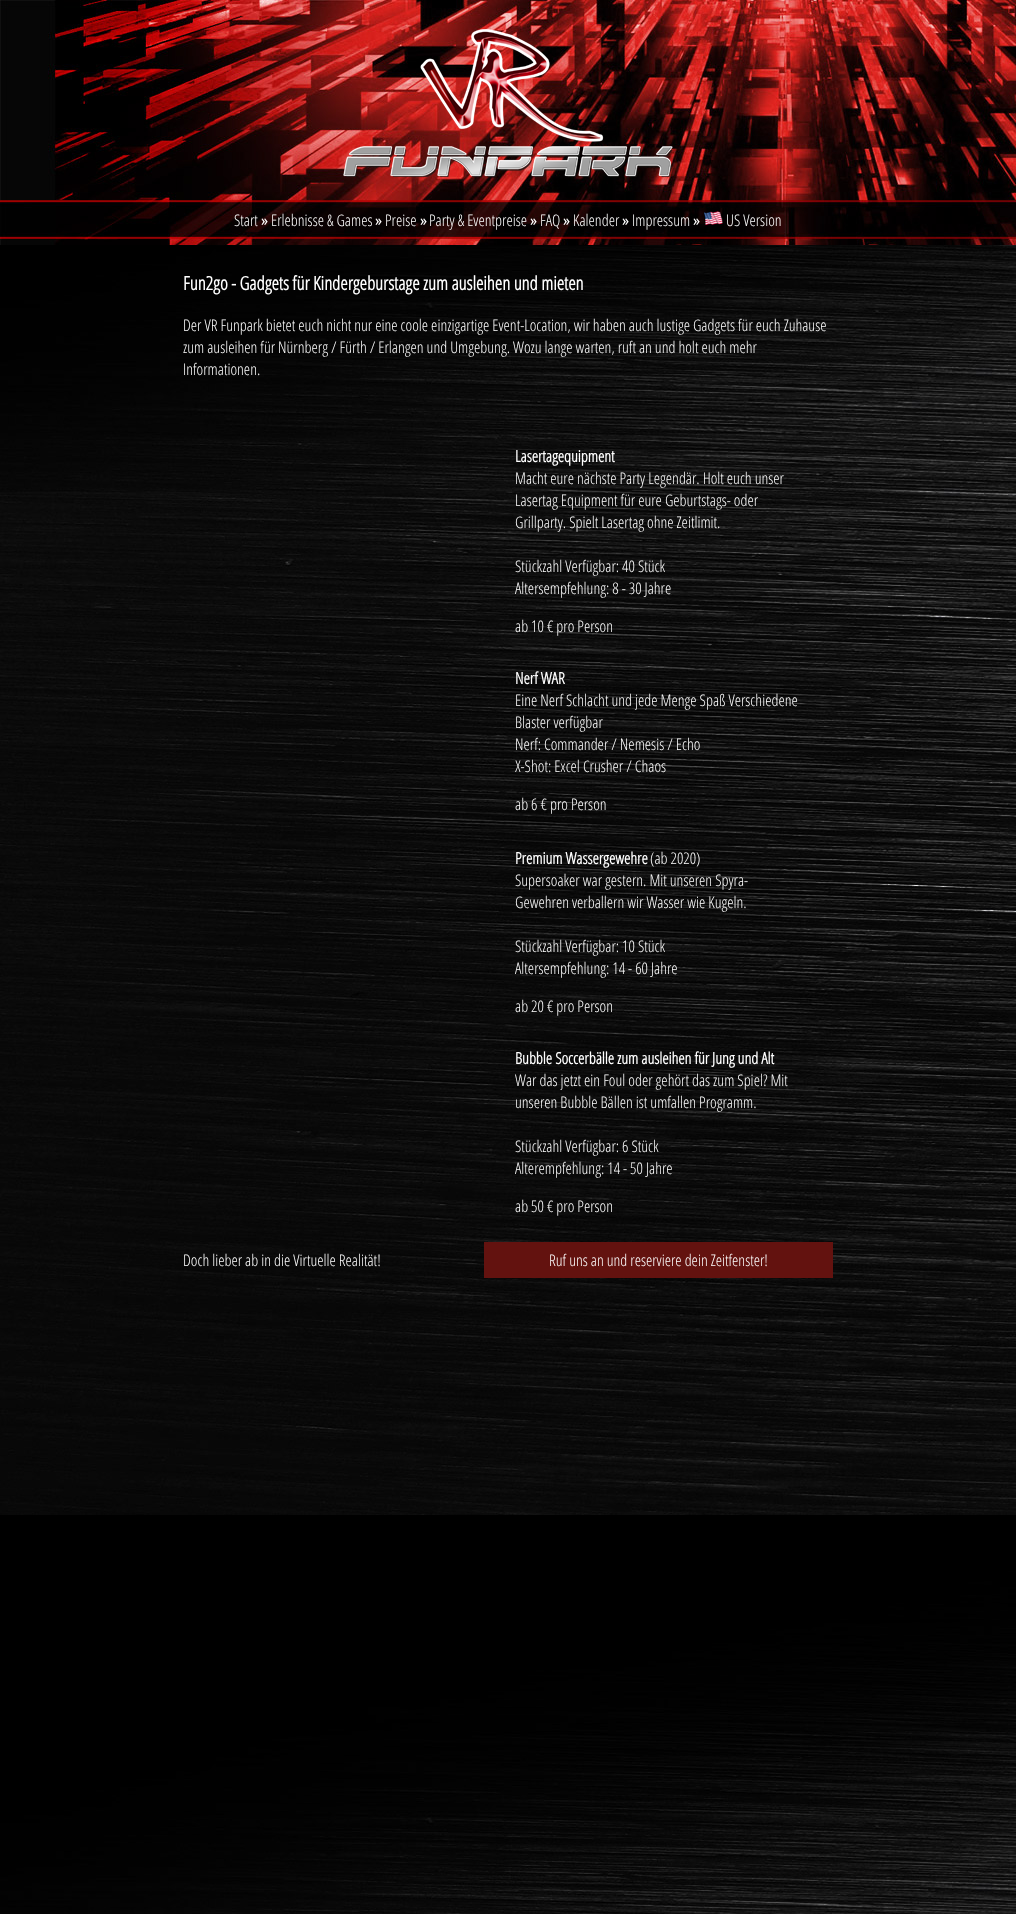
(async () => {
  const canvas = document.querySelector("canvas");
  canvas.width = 1016;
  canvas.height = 1914;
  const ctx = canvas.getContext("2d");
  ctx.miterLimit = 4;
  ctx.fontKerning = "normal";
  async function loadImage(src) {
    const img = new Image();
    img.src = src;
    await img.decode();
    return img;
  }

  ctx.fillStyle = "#ffffff";
  ctx.fillRect(0, 0, 1016, 1914);
  ctx.drawImage(await loadImage("img/1.png"), 0, 245, 1016, 1669);
  ctx.drawImage(await loadImage("img/2.png"), 0, 0, 1016, 245);
  ctx.drawImage(await loadImage("img/3.png"), 343, 29, 330, 148);
  ctx.drawImage(await loadImage("img/4.png"), 703, 211, 20, 14);
  ctx.fillStyle = "#63120f";
  ctx.fillRect(484, 1242, 349, 36);
  ctx.font = "300 16px Open Sans Condensed";
  ctx.fillStyle = "#ffffff";
  ctx.fillText("Start", 234, 226);
  ctx.font = "bold 16px Open Sans Condensed";
  ctx.fillText("»", 261, 226);
  ctx.font = "300 16px Open Sans Condensed";
  ctx.fillText("Erlebnisse & Games", 271, 226);
  ctx.font = "bold 16px Open Sans Condensed";
  ctx.fillText("»", 375, 226);
  ctx.font = "300 16px Open Sans Condensed";
  ctx.fillText("Preise", 385, 226);
  ctx.font = "bold 16px Open Sans Condensed";
  ctx.fillText("»", 420, 226);
  ctx.font = "300 16px Open Sans Condensed";
  ctx.fillText("Party & Eventpreise", 429, 226);
  ctx.font = "bold 16px Open Sans Condensed";
  ctx.fillText("»", 530, 226);
  ctx.font = "300 16px Open Sans Condensed";
  ctx.fillText("FAQ", 540, 226);
  ctx.font = "bold 16px Open Sans Condensed";
  ctx.fillText("»", 563, 226);
  ctx.font = "300 16px Open Sans Condensed";
  ctx.fillText("Kalender", 573, 226);
  ctx.font = "bold 16px Open Sans Condensed";
  ctx.fillText("»", 622, 226);
  ctx.font = "300 16px Open Sans Condensed";
  ctx.fillText("Impressum", 632, 226);
  ctx.font = "bold 16px Open Sans Condensed";
  ctx.fillText("»", 693, 226);
  ctx.font = "300 16px Open Sans Condensed";
  ctx.fillText("US Version", 726, 226);
  ctx.font = "bold 18.75px Open Sans Condensed";
  ctx.fillText("Fun2go - Gadgets für Kindergeburstage zum ausleihen und mieten", 183, 290);
  ctx.font = "300 16px Open Sans Condensed";
  for (const [text, x, y] of [
    ["Der VR Funpark bietet euch nicht nur eine coole einzigartige Event-Location, wir haben auch lustige Gadgets für euch Zuhause", 183, 331],
    ["zum ausleihen für Nürnberg / Fürth / Erlangen und Umgebung. Wozu lange warten, ruft an und holt euch mehr", 183, 353],
    ["Informationen.", 183, 375],
  ]) {
    ctx.fillText(text, x, y);
  }
  ctx.font = "bold 16px Open Sans Condensed";
  ctx.fillText("Lasertagequipment", 515, 462);
  ctx.font = "300 16px Open Sans Condensed";
  for (const [text, x, y] of [
    ["Macht eure nächste Party Legendär. Holt euch unser", 515, 484],
    ["Lasertag Equipment für eure Geburtstags- oder", 515, 506],
    ["Grillparty. Spielt Lasertag ohne Zeitlimit.", 515, 528],
    ["Stückzahl Verfügbar: 40 Stück", 515, 572],
    ["Altersempfehlung: 8 - 30 Jahre", 515, 594],
    ["ab 10 € pro Person", 515, 632],
  ]) {
    ctx.fillText(text, x, y);
  }
  ctx.font = "bold 16px Open Sans Condensed";
  ctx.fillText("Nerf WAR", 515, 684);
  ctx.font = "300 16px Open Sans Condensed";
  for (const [text, x, y] of [
    ["Eine Nerf Schlacht und jede Menge Spaß Verschiedene", 515, 706],
    ["Blaster verfügbar", 515, 728],
    ["Nerf: Commander / Nemesis / Echo", 515, 750],
    ["X-Shot: Excel Crusher / Chaos", 515, 772],
    ["ab 6 € pro Person", 515, 810],
  ]) {
    ctx.fillText(text, x, y);
  }
  ctx.font = "bold 16px Open Sans Condensed";
  ctx.fillText("Premium Wassergewehre", 515, 864);
  ctx.font = "300 16px Open Sans Condensed";
  for (const [text, x, y] of [
    ["(ab 2020)", 650, 864],
    ["Supersoaker war gestern. Mit unseren Spyra-", 515, 886],
    ["Gewehren verballern wir Wasser wie Kugeln.", 515, 908],
    ["Stückzahl Verfügbar: 10 Stück", 515, 952],
    ["Altersempfehlung: 14 - 60 Jahre", 515, 974],
    ["ab 20 € pro Person", 515, 1012],
  ]) {
    ctx.fillText(text, x, y);
  }
  ctx.font = "bold 16px Open Sans Condensed";
  ctx.fillText("Bubble Soccerbälle zum ausleihen für Jung und Alt", 515, 1064);
  ctx.font = "300 16px Open Sans Condensed";
  for (const [text, x, y] of [
    ["War das jetzt ein Foul oder gehört das zum Spiel? Mit", 515, 1086],
    ["unseren Bubble Bällen ist umfallen Programm.", 515, 1108],
    ["Stückzahl Verfügbar: 6 Stück", 515, 1152],
    ["Alterempfehlung: 14 - 50 Jahre", 515, 1174],
    ["ab 50 € pro Person", 515, 1212],
    ["Doch lieber ab in die Virtuelle Realität!", 183, 1266],
    ["Ruf uns an und reserviere dein Zeitfenster!", 549, 1266],
  ]) {
    ctx.fillText(text, x, y);
  }
})();
